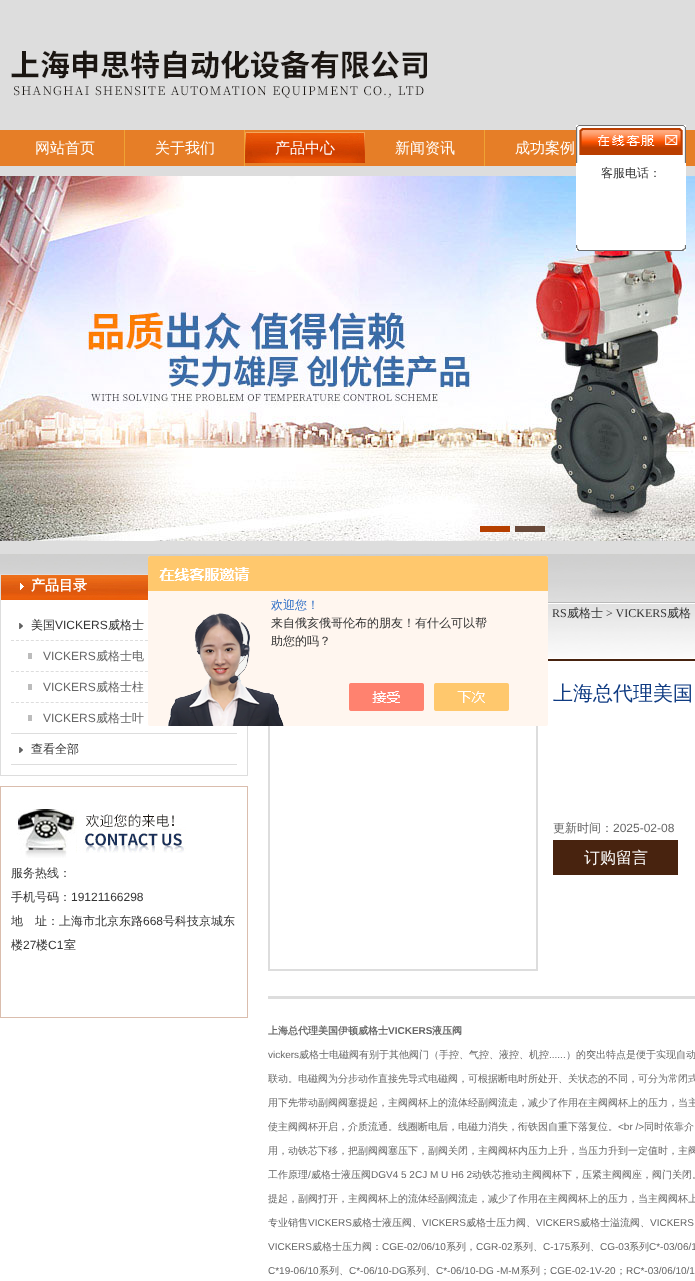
(async () => {
  const canvas = document.querySelector("canvas");
  canvas.width = 695;
  canvas.height = 1281;
  const ctx = canvas.getContext("2d");
  ctx.miterLimit = 4;
  ctx.fontKerning = "normal";
  async function loadImage(src) {
    const img = new Image();
    img.src = src;
    await img.decode();
    return img;
  }
  let path;

  ctx.fillStyle = "#ffffff";
  ctx.fillRect(0, 0, 695, 1281);
  ctx.fillStyle = "#dddddd";
  ctx.fillRect(0, 0, 695, 130);
  ctx.drawImage(await loadImage("img/1.png"), 11, 50, 416, 48);
  for (const [x, y, w, h, color] of [
    [0, 130, 695, 36, "#e67e27"],
    [124, 130, 1, 36, "#efa333"],
    [244, 130, 1, 36, "#efa333"],
  ]) {
    ctx.fillStyle = color;
    ctx.fillRect(x, y, w, h);
  }
  ctx.drawImage(await loadImage("img/2.png"), 245, 132, 120, 31);
  ctx.fillRect(484, 130, 1, 36);
  ctx.fillStyle = "#dddddd";
  ctx.fillRect(0, 166, 695, 388);
  ctx.drawImage(await loadImage("img/3.png"), 0, 176, 695, 365);
  ctx.fillStyle = "#b74000";
  ctx.fillRect(480, 526, 30, 6);
  ctx.fillStyle = "#684939";
  ctx.fillRect(515, 526, 30, 6);
  ctx.drawImage(await loadImage("img/4.png"), 576, 125, 110, 38);
  ctx.fillStyle = "#ffffff";
  ctx.fillRect(576, 163, 110, 82);
  ctx.drawImage(await loadImage("img/5.png"), 576, 245, 110, 6);
  ctx.drawImage(await loadImage("img/6.png"), 0, 554, 695, 104);
  ctx.fillRect(1, 600, 246, 58);
  ctx.strokeStyle = "#dddddd";
  ctx.strokeRect(0.5, 574.5, 247, 201);
  ctx.drawImage(await loadImage("img/7.png"), 1, 575, 147, 25);
  ctx.fillStyle = "#dddddd";
  ctx.fillRect(11, 733, 226, 1);
  ctx.drawImage(await loadImage("img/8.png"), 19, 623, 4, 6);
  path = new Path2D("M11 640.5H237");
  ctx.setLineDash([3, 1.96]);
  ctx.stroke(path);
  ctx.fillStyle = "#bcbcbc";
  ctx.fillRect(28, 653, 4, 6);
  path = new Path2D("M11 671.5H237");
  ctx.stroke(path);
  ctx.fillRect(28, 684, 4, 6);
  path = new Path2D("M11 702.5H237");
  ctx.stroke(path);
  ctx.fillRect(28, 715, 4, 6);
  ctx.fillStyle = "#dddddd";
  ctx.fillRect(11, 764, 226, 1);
  ctx.drawImage(await loadImage("img/8.png"), 19, 747, 4, 6);
  ctx.strokeStyle = "#dabdad";
  ctx.setLineDash([]);
  ctx.strokeRect(0.5, 786.5, 247, 231);
  ctx.drawImage(await loadImage("img/9.png"), 16, 809, 170, 49);
  ctx.drawImage(await loadImage("img/10.png"), 548, 579, 147, 25);
  ctx.fillStyle = "#48230f";
  ctx.fillRect(548, 659, 147, 2);
  ctx.fillStyle = "#dddddd";
  ctx.fillRect(268, 996, 427, 3);
  ctx.strokeStyle = "#dddddd";
  ctx.lineWidth = 2;
  ctx.strokeRect(269, 682, 268, 288);
  ctx.fillStyle = "#48230f";
  ctx.fillRect(553, 840, 125, 35);
  ctx.drawImage(await loadImage("img/11.png"), 148, 556, 400, 170);
  ctx.font = "500 15px WenQuanYi Zen Hei";
  ctx.fillStyle = "#ffffff";
  for (const [text, x, y] of [
    ["网站首页", 35, 153],
    ["关于我们", 155, 153],
    ["产品中心", 275, 153],
    ["新闻资讯", 395, 153],
    ["成功案例", 515, 153],
  ]) {
    ctx.fillText(text, x, y);
  }
  ctx.font = "500 12px WenQuanYi Zen Hei";
  ctx.fillStyle = "#333333";
  ctx.fillText("客服电话：", 601, 177);
  ctx.font = "bold 14px WenQuanYi Zen Hei";
  ctx.fillStyle = "#ffffff";
  ctx.fillText("产品目录", 31, 590);
  ctx.font = "500 12px WenQuanYi Zen Hei";
  ctx.fillStyle = "#333333";
  ctx.fillText("美国", 31, 629);
  ctx.font = "12px Liberation Sans";
  ctx.fillText("VICKERS", 55, 629);
  ctx.font = "500 12px WenQuanYi Zen Hei";
  ctx.fillText("威格士", 108, 629);
  ctx.font = "12px Liberation Sans";
  ctx.fillStyle = "#666666";
  ctx.fillText("VICKERS", 43, 660);
  ctx.font = "500 12px WenQuanYi Zen Hei";
  ctx.fillText("威格士电", 96, 660);
  ctx.font = "12px Liberation Sans";
  ctx.fillText("VICKERS", 43, 691);
  ctx.font = "500 12px WenQuanYi Zen Hei";
  ctx.fillText("威格士柱", 96, 691);
  ctx.font = "12px Liberation Sans";
  ctx.fillText("VICKERS", 43, 722);
  ctx.font = "500 12px WenQuanYi Zen Hei";
  ctx.fillText("威格士叶", 96, 722);
  ctx.fillStyle = "#333333";
  for (const [text, x, y] of [
    ["查看全部", 31, 753],
    ["服务热线：", 11, 877],
    ["手机号码：", 11, 901],
  ]) {
    ctx.fillText(text, x, y);
  }
  ctx.font = "12px Liberation Sans";
  ctx.fillText("19121166298", 71, 901);
  ctx.font = "500 12px WenQuanYi Zen Hei";
  ctx.fillText("地　址：上海市北京东路", 11, 925);
  ctx.font = "12px Liberation Sans";
  ctx.fillText("668", 143, 925);
  ctx.font = "500 12px WenQuanYi Zen Hei";
  ctx.fillText("号科技京城东", 163, 925);
  ctx.fillText("楼", 11, 949);
  ctx.font = "12px Liberation Sans";
  ctx.fillText("27", 23, 949);
  ctx.font = "500 12px WenQuanYi Zen Hei";
  ctx.fillText("楼", 36, 949);
  ctx.font = "12px Liberation Sans";
  ctx.fillText("C1", 48, 949);
  ctx.font = "500 12px WenQuanYi Zen Hei";
  ctx.fillText("室", 64, 949);
  ctx.font = "12px Liberation Serif";
  ctx.fillText("RS", 552, 617);
  ctx.font = "500 12px WenQuanYi Zen Hei";
  ctx.fillText("威格士", 567, 617);
  ctx.font = "12px Liberation Serif";
  ctx.fillText("> VICKERS", 606, 617);
  ctx.font = "500 12px WenQuanYi Zen Hei";
  ctx.fillText("威格", 667, 617);
  ctx.font = "500 20px WenQuanYi Zen Hei";
  ctx.fillStyle = "#0f3b82";
  ctx.fillText("上海总代理美国", 553, 700);
  ctx.font = "500 12px WenQuanYi Zen Hei";
  ctx.fillStyle = "#666666";
  ctx.fillText("更新时间：", 553, 832);
  ctx.font = "12px Liberation Sans";
  ctx.fillText("2025-02-08", 613, 832);
  ctx.font = "500 16px WenQuanYi Zen Hei";
  ctx.fillStyle = "#ffffff";
  ctx.fillText("订购留言", 584, 863);
  ctx.font = "bold 10px WenQuanYi Zen Hei";
  ctx.fillStyle = "#666666";
  ctx.fillText("上海总代理美国伊顿威格士", 268, 1034);
  ctx.font = "bold 10px Liberation Sans";
  ctx.fillText("VICKERS", 388, 1034);
  ctx.font = "bold 10px WenQuanYi Zen Hei";
  ctx.fillText("液压阀", 432, 1034);
  ctx.font = "10px Liberation Sans";
  ctx.fillText("vickers", 268, 1058);
  ctx.font = "500 10px WenQuanYi Zen Hei";
  ctx.fillText("威格士电磁阀有别于其他阀门（手控、气控、液控、机控", 299, 1058);
  ctx.font = "10px Liberation Sans";
  ctx.fillText("......", 549, 1058);
  ctx.font = "500 10px WenQuanYi Zen Hei";
  for (const [text, x, y] of [
    ["）的突出特点是便于实现自动", 566, 1058],
    ["联动。电磁阀为分步动作直接先导式电磁阀，可根据断电时所处开、关状态的不同，可分为常闭式", 268, 1082],
    ["用下先带动副阀阀塞提起，主阀阀杯上的流体经副阀流走，减少了作用在主阀阀杯上的压力，当主", 268, 1106],
    ["使主阀阀杯开启，介质流通。线圈断电后，电磁力消失，衔铁因自重下落复位。", 268, 1130],
  ]) {
    ctx.fillText(text, x, y);
  }
  ctx.font = "10px Liberation Sans";
  ctx.fillText("<br />", 618, 1130);
  ctx.font = "500 10px WenQuanYi Zen Hei";
  for (const [text, x, y] of [
    ["同时依靠介", 644, 1130],
    ["用，动铁芯下移，把副阀阀塞压下，副阀关闭，主阀阀杯内压力上升，当压力升到一定值时，主阀", 268, 1154],
    ["工作原理 威格士液压阀", 268, 1178],
    ["动铁芯推动主阀阀杯下，压紧主阀阀座，阀门关闭。", 472, 1178],
  ]) {
    ctx.fillText(text, x, y);
  }
  ctx.font = "10px Liberation Sans";
  ctx.fillText("/", 308, 1178);
  ctx.fillText("DGV4 5 2CJ M U H6 2", 371, 1178);
  ctx.font = "500 10px WenQuanYi Zen Hei";
  ctx.fillText("提起，副阀打开，主阀阀杯上的流体经副阀流走，减少了作用在主阀阀杯上的压力，当主阀阀杯上", 268, 1202);
  ctx.fillText("专业销售", 268, 1226);
  ctx.font = "10px Liberation Sans";
  ctx.fillText("VICKERS", 308, 1226);
  ctx.font = "500 10px WenQuanYi Zen Hei";
  ctx.fillText("威格士液压阀、", 352, 1226);
  ctx.font = "10px Liberation Sans";
  ctx.fillText("VICKERS", 422, 1226);
  ctx.font = "500 10px WenQuanYi Zen Hei";
  ctx.fillText("威格士压力阀、", 466, 1226);
  ctx.font = "10px Liberation Sans";
  ctx.fillText("VICKERS", 536, 1226);
  ctx.font = "500 10px WenQuanYi Zen Hei";
  ctx.fillText("威格士溢流阀、", 580, 1226);
  ctx.font = "10px Liberation Sans";
  ctx.fillText("VICKERS", 650, 1226);
  ctx.fillText("VICKERS", 268, 1250);
  ctx.font = "500 10px WenQuanYi Zen Hei";
  ctx.fillText("威格士压力阀：", 312, 1250);
  ctx.font = "10px Liberation Sans";
  ctx.fillText("CGE-02/06/10", 382, 1250);
  ctx.font = "500 10px WenQuanYi Zen Hei";
  ctx.fillText("系列，", 446, 1250);
  ctx.font = "10px Liberation Sans";
  ctx.fillText("CGR-02", 476, 1250);
  ctx.font = "500 10px WenQuanYi Zen Hei";
  ctx.fillText("系列、", 513, 1250);
  ctx.font = "10px Liberation Sans";
  ctx.fillText("C-175", 543, 1250);
  ctx.font = "500 10px WenQuanYi Zen Hei";
  ctx.fillText("系列、", 570, 1250);
  ctx.font = "10px Liberation Sans";
  ctx.fillText("CG-03", 600, 1250);
  ctx.font = "500 10px WenQuanYi Zen Hei";
  ctx.fillText("系列", 629, 1250);
  ctx.font = "10px Liberation Sans";
  ctx.fillText("C*-03/06/1", 649, 1250);
  ctx.fillText("C*19-06/10", 268, 1274);
  ctx.font = "500 10px WenQuanYi Zen Hei";
  ctx.fillText("系列、", 319, 1274);
  ctx.font = "10px Liberation Sans";
  ctx.fillText("C*-06/10-DG", 349, 1274);
  ctx.font = "500 10px WenQuanYi Zen Hei";
  ctx.fillText("系列、", 406, 1274);
  ctx.font = "10px Liberation Sans";
  ctx.fillText("C*-06/10-DG -M-M", 436, 1274);
  ctx.font = "500 10px WenQuanYi Zen Hei";
  ctx.fillText("系列；", 520, 1274);
  ctx.font = "10px Liberation Sans";
  ctx.fillText("CGE-02-1V-20", 550, 1274);
  ctx.font = "500 10px WenQuanYi Zen Hei";
  ctx.fillText("；", 616, 1274);
  ctx.font = "10px Liberation Sans";
  ctx.fillText("RC*-03/06/10/1", 626, 1274);
  ctx.font = "500 12px WenQuanYi Zen Hei";
  ctx.fillStyle = "#2e6ec6";
  ctx.fillText("欢迎您！", 271, 609);
  ctx.fillStyle = "#333333";
  ctx.fillText("来自俄亥俄哥伦布的朋友！有什么可以帮", 271, 627);
  ctx.fillText("助您的吗？", 271, 645);
})();
